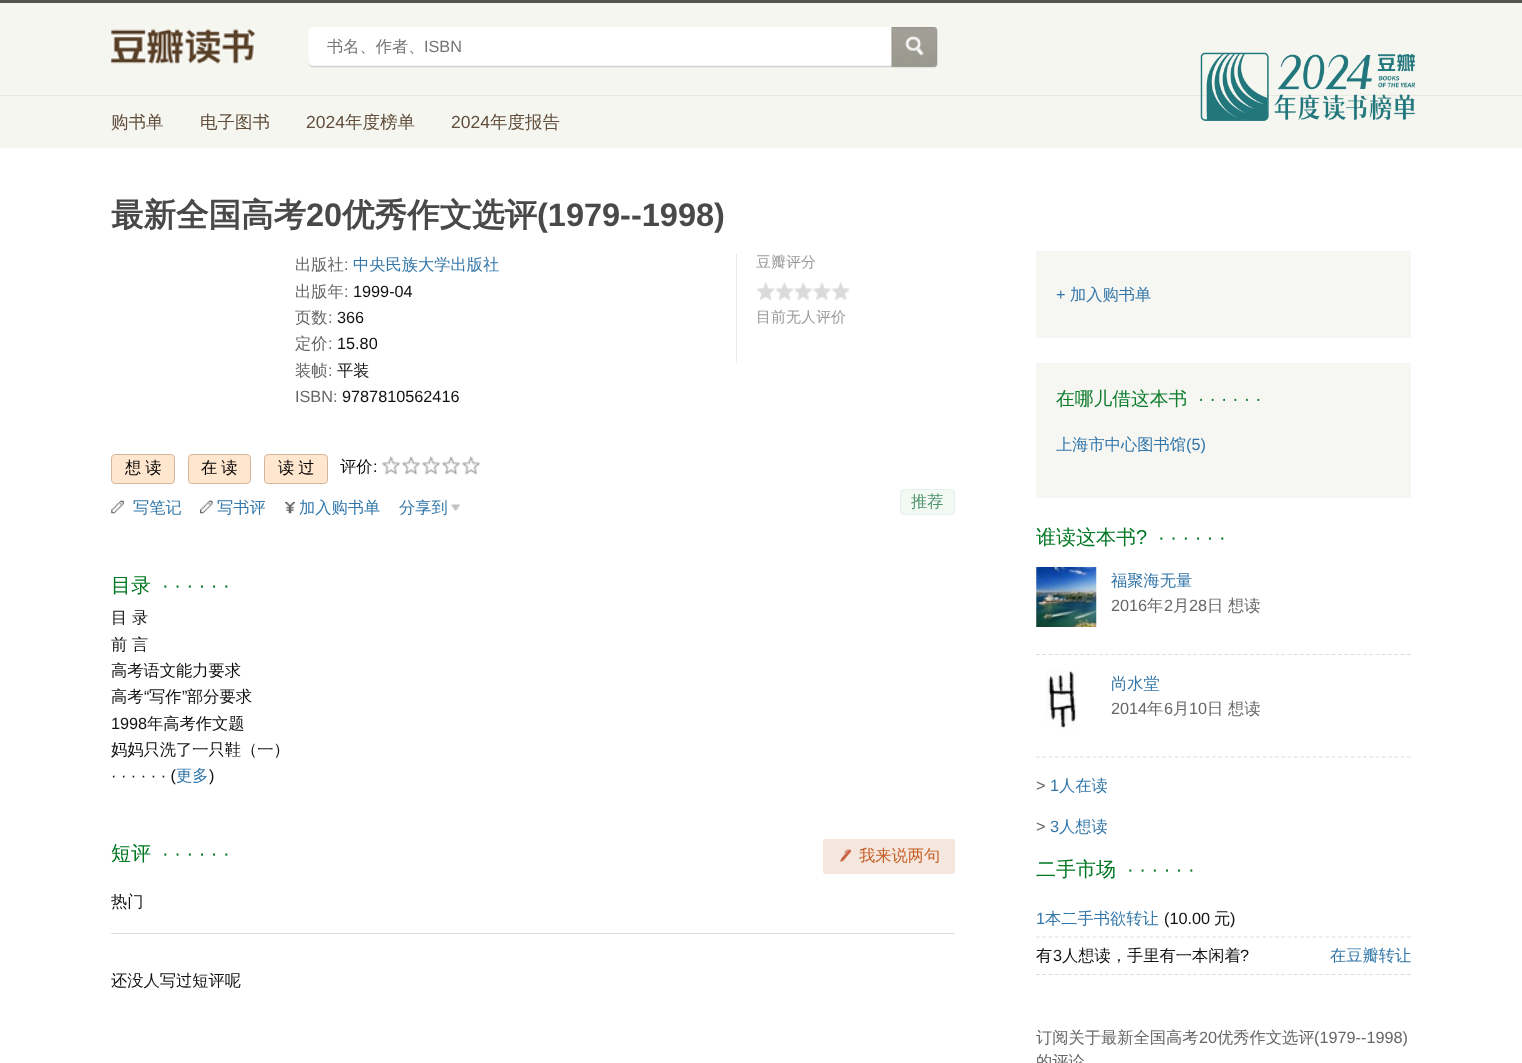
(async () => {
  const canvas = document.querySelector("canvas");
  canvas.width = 1522;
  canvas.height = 1063;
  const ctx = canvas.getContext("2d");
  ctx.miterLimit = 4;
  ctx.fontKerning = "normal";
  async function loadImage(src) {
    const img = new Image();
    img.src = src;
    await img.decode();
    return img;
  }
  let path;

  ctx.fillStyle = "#ffffff";
  ctx.fillRect(0, 0, 1522, 1063);
  for (const [x, y, w, h, color] of [
    [0, 0, 1522, 3, "#545652"],
    [0, 3, 1522, 145, "#f6f6f1"],
    [0, 95, 1522, 1, "#e9e9e2"],
  ]) {
    ctx.fillStyle = color;
    ctx.fillRect(x, y, w, h);
  }
  ctx.drawImage(await loadImage("img/1.png"), 111, 29, 144, 35);
  ctx.drawImage(await loadImage("img/2.png"), 308, 27, 584, 41);
  ctx.drawImage(await loadImage("img/3.png"), 891, 27, 47, 41);
  ctx.drawImage(await loadImage("img/4.png"), 1200, 52, 215, 69);
  ctx.fillStyle = "#eaeaea";
  ctx.fillRect(736, 254, 1, 109);
  ctx.drawImage(await loadImage("img/5.png"), 756, 282, 94, 19);
  ctx.fillStyle = "#ffe6ce";
  ctx.beginPath();
  ctx.roundRect(111.5, 454.5, 63, 29, 3.5);
  ctx.fill();
  ctx.strokeStyle = "#d6b79d";
  ctx.stroke();
  ctx.beginPath();
  ctx.roundRect(188.5, 454.5, 62, 29, 3.5);
  ctx.fill();
  ctx.stroke();
  ctx.beginPath();
  ctx.roundRect(264.5, 454.5, 63, 29, 3.5);
  ctx.fill();
  ctx.stroke();
  ctx.drawImage(await loadImage("img/6.png"), 382, 456, 19, 19);
  ctx.drawImage(await loadImage("img/6.png"), 402, 456, 19, 19);
  ctx.drawImage(await loadImage("img/6.png"), 422, 456, 19, 19);
  ctx.drawImage(await loadImage("img/6.png"), 442, 456, 19, 19);
  ctx.drawImage(await loadImage("img/6.png"), 462, 456, 19, 19);
  ctx.drawImage(await loadImage("img/7.png"), 111, 500, 13, 14);
  ctx.drawImage(await loadImage("img/8.png"), 200, 500, 13, 14);
  ctx.drawImage(await loadImage("img/9.png"), 285, 502, 10, 12);
  ctx.drawImage(await loadImage("img/10.png"), 451, 504, 9, 7);
  ctx.fillStyle = "#f2f8f2";
  ctx.beginPath();
  ctx.roundRect(900.5, 489.5, 54, 25, 3.5);
  ctx.fill();
  ctx.strokeStyle = "#e3f1ed";
  ctx.stroke();
  ctx.fillStyle = "#f6e7de";
  ctx.beginPath();
  ctx.roundRect(823, 839, 132, 35, 2.5);
  ctx.fill();
  ctx.drawImage(await loadImage("img/11.png"), 840, 849, 12, 13);
  ctx.fillStyle = "#dddddd";
  ctx.beginPath();
  ctx.roundRect(111, 933, 844, 1, 0.5);
  ctx.fill();
  ctx.fillStyle = "#f6f6f2";
  ctx.fillRect(1036, 251, 375, 87);
  ctx.fillRect(1036, 363, 375, 135);
  ctx.drawImage(await loadImage("img/12.png"), 1036, 567, 61, 60);
  path = new Path2D("M1036 654.5H1411");
  ctx.strokeStyle = "#dddddd";
  ctx.lineWidth = 1.2;
  ctx.setLineDash([3.75, 2.54]);
  ctx.stroke(path);
  ctx.drawImage(await loadImage("img/13.png"), 1046, 670, 31, 59);
  path = new Path2D("M1036 757H1411");
  ctx.stroke(path);
  path = new Path2D("M1036 937H1411");
  ctx.stroke(path);
  path = new Path2D("M1036 974.5H1411");
  ctx.stroke(path);
  ctx.font = "500 16.25px WenQuanYi Zen Hei";
  ctx.fillStyle = "#757575";
  ctx.fillText("书名、作者、", 327, 52);
  ctx.font = "16.25px Liberation Sans";
  ctx.fillText("ISBN", 424, 52);
  ctx.font = "500 17.5px WenQuanYi Zen Hei";
  ctx.fillStyle = "#614e3c";
  ctx.fillText("购书单", 111, 128);
  ctx.fillText("电子图书", 200, 128);
  ctx.font = "17.5px Liberation Sans";
  ctx.fillText("2024", 306, 128);
  ctx.font = "500 17.5px WenQuanYi Zen Hei";
  ctx.fillText("年度榜单", 345, 128);
  ctx.font = "17.5px Liberation Sans";
  ctx.fillText("2024", 451, 128);
  ctx.font = "500 17.5px WenQuanYi Zen Hei";
  ctx.fillText("年度报告", 490, 128);
  ctx.font = "bold 32.5px WenQuanYi Zen Hei";
  ctx.fillStyle = "#494949";
  ctx.fillText("最新全国高考", 111, 226);
  ctx.font = "bold 32.5px Liberation Sans";
  ctx.fillText("20", 306, 226);
  ctx.font = "bold 32.5px WenQuanYi Zen Hei";
  ctx.fillText("优秀作文选评", 342, 226);
  ctx.font = "bold 32.5px Liberation Sans";
  ctx.fillText("(1979--1998)", 537, 226);
  ctx.font = "500 16.25px WenQuanYi Zen Hei";
  ctx.fillStyle = "#666666";
  ctx.fillText("出版社", 295, 270);
  ctx.font = "16.25px Liberation Sans";
  ctx.fillText(":", 344, 270);
  ctx.font = "500 16.25px WenQuanYi Zen Hei";
  ctx.fillStyle = "#3377aa";
  ctx.fillText("中央民族大学出版社", 353, 270);
  ctx.fillStyle = "#666666";
  ctx.fillText("出版年", 295, 297);
  ctx.font = "16.25px Liberation Sans";
  ctx.fillText(":", 344, 297);
  ctx.fillStyle = "#111111";
  ctx.fillText("1999-04", 353, 297);
  ctx.font = "500 16.25px WenQuanYi Zen Hei";
  ctx.fillStyle = "#666666";
  ctx.fillText("页数", 295, 323);
  ctx.font = "16.25px Liberation Sans";
  ctx.fillText(":", 328, 323);
  ctx.fillStyle = "#111111";
  ctx.fillText("366", 337, 323);
  ctx.font = "500 16.25px WenQuanYi Zen Hei";
  ctx.fillStyle = "#666666";
  ctx.fillText("定价", 295, 349);
  ctx.font = "16.25px Liberation Sans";
  ctx.fillText(":", 328, 349);
  ctx.fillStyle = "#111111";
  ctx.fillText("15.80", 337, 349);
  ctx.font = "500 16.25px WenQuanYi Zen Hei";
  ctx.fillStyle = "#666666";
  ctx.fillText("装帧", 295, 376);
  ctx.font = "16.25px Liberation Sans";
  ctx.fillText(":", 328, 376);
  ctx.font = "500 16.25px WenQuanYi Zen Hei";
  ctx.fillStyle = "#111111";
  ctx.fillText("平装", 337, 376);
  ctx.font = "16.25px Liberation Sans";
  ctx.fillStyle = "#666666";
  ctx.fillText("ISBN:", 295, 402);
  ctx.fillStyle = "#111111";
  ctx.fillText("9787810562416", 342, 402);
  ctx.font = "500 15px WenQuanYi Zen Hei";
  ctx.fillStyle = "#9b9b9b";
  ctx.fillText("豆瓣评分", 756, 267);
  ctx.fillText("目前无人评价", 756, 322);
  ctx.letterSpacing = "4px";
  ctx.font = "500 16.25px WenQuanYi Zen Hei";
  ctx.fillStyle = "#000000";
  for (const [text, x, y] of [
    ["想读", 125, 473],
    ["在读", 201, 473],
    ["读过", 278, 473],
  ]) {
    ctx.fillText(text, x, y);
  }
  ctx.letterSpacing = "0px";
  ctx.fillStyle = "#111111";
  ctx.fillText("评价", 340, 472);
  ctx.font = "16.25px Liberation Sans";
  ctx.fillText(":", 373, 472);
  ctx.font = "500 16.25px WenQuanYi Zen Hei";
  ctx.fillStyle = "#3377aa";
  for (const [text, x, y] of [
    ["写笔记", 133, 513],
    ["写书评", 217, 513],
    ["加入购书单", 299, 513],
    ["分享到", 399, 513],
  ]) {
    ctx.fillText(text, x, y);
  }
  ctx.fillStyle = "#4f946e";
  ctx.fillText("推荐", 911, 507);
  ctx.font = "500 20px WenQuanYi Zen Hei";
  ctx.fillStyle = "#007722";
  ctx.fillText("目录", 111, 592);
  ctx.font = "20px Liberation Sans";
  ctx.fillText("· · · · · ·", 162, 592);
  ctx.font = "500 16.25px WenQuanYi Zen Hei";
  ctx.fillStyle = "#111111";
  for (const [text, x, y] of [
    ["目 录", 111, 623],
    ["前 言", 111, 650],
    ["高考语文能力要求", 111, 676],
    ["高考", 111, 702],
  ]) {
    ctx.fillText(text, x, y);
  }
  ctx.font = "16.25px Liberation Sans";
  ctx.fillText("“", 144, 702);
  ctx.font = "500 16.25px WenQuanYi Zen Hei";
  ctx.fillText("写作", 149, 702);
  ctx.font = "16.25px Liberation Sans";
  ctx.fillText("”", 182, 702);
  ctx.font = "500 16.25px WenQuanYi Zen Hei";
  ctx.fillText("部分要求", 187, 702);
  ctx.font = "16.25px Liberation Sans";
  ctx.fillText("1998", 111, 729);
  ctx.font = "500 16.25px WenQuanYi Zen Hei";
  ctx.fillText("年高考作文题", 147, 729);
  ctx.fillText("妈妈只洗了一只鞋（一）", 111, 755);
  ctx.font = "16.25px Liberation Sans";
  ctx.fillText("· · · · · · (", 111, 781);
  ctx.font = "500 16.25px WenQuanYi Zen Hei";
  ctx.fillStyle = "#3377aa";
  ctx.fillText("更多", 176, 781);
  ctx.font = "16.25px Liberation Sans";
  ctx.fillStyle = "#111111";
  ctx.fillText(")", 209, 781);
  ctx.font = "500 20px WenQuanYi Zen Hei";
  ctx.fillStyle = "#007722";
  ctx.fillText("短评", 111, 860);
  ctx.font = "20px Liberation Sans";
  ctx.fillText("· · · · · ·", 162, 860);
  ctx.font = "500 16.25px WenQuanYi Zen Hei";
  ctx.fillStyle = "#c65e24";
  ctx.fillText("我来说两句", 859, 861);
  ctx.fillStyle = "#111111";
  ctx.fillText("热门", 111, 907);
  ctx.fillText("还没人写过短评呢", 111, 986);
  ctx.font = "16.25px Liberation Sans";
  ctx.fillStyle = "#3377aa";
  ctx.fillText("+", 1056, 300);
  ctx.font = "500 16.25px WenQuanYi Zen Hei";
  ctx.fillText("加入购书单", 1070, 300);
  ctx.font = "500 18.75px WenQuanYi Zen Hei";
  ctx.fillStyle = "#0b7c2a";
  ctx.fillText("在哪儿借这本书", 1056, 405);
  ctx.font = "18.75px Liberation Sans";
  ctx.fillText("· · · · · ·", 1198, 405);
  ctx.font = "500 16.25px WenQuanYi Zen Hei";
  ctx.fillStyle = "#3377aa";
  ctx.fillText("上海市中心图书馆", 1056, 450);
  ctx.font = "16.25px Liberation Sans";
  ctx.fillText("(5)", 1186, 450);
  ctx.font = "500 20px WenQuanYi Zen Hei";
  ctx.fillStyle = "#007722";
  ctx.fillText("谁读这本书", 1036, 544);
  ctx.font = "20px Liberation Sans";
  ctx.fillText("?", 1136, 544);
  ctx.fillText("· · · · · ·", 1158, 544);
  ctx.font = "500 16.25px WenQuanYi Zen Hei";
  ctx.fillStyle = "#3377aa";
  ctx.fillText("福聚海无量", 1111, 586);
  ctx.font = "16.25px Liberation Sans";
  ctx.fillStyle = "#666666";
  ctx.fillText("2016", 1111, 611);
  ctx.font = "500 16.25px WenQuanYi Zen Hei";
  ctx.fillText("年", 1147, 611);
  ctx.font = "16.25px Liberation Sans";
  ctx.fillText("2", 1164, 611);
  ctx.font = "500 16.25px WenQuanYi Zen Hei";
  ctx.fillText("月", 1173, 611);
  ctx.font = "16.25px Liberation Sans";
  ctx.fillText("28", 1189, 611);
  ctx.font = "500 16.25px WenQuanYi Zen Hei";
  ctx.fillText("日", 1207, 611);
  ctx.fillText("想读", 1228, 611);
  ctx.fillStyle = "#3377aa";
  ctx.fillText("尚水堂", 1111, 689);
  ctx.font = "16.25px Liberation Sans";
  ctx.fillStyle = "#666666";
  ctx.fillText("2014", 1111, 714);
  ctx.font = "500 16.25px WenQuanYi Zen Hei";
  ctx.fillText("年", 1147, 714);
  ctx.font = "16.25px Liberation Sans";
  ctx.fillText("6", 1164, 714);
  ctx.font = "500 16.25px WenQuanYi Zen Hei";
  ctx.fillText("月", 1173, 714);
  ctx.font = "16.25px Liberation Sans";
  ctx.fillText("10", 1189, 714);
  ctx.font = "500 16.25px WenQuanYi Zen Hei";
  ctx.fillText("日", 1207, 714);
  ctx.fillText("想读", 1228, 714);
  ctx.font = "16.25px Liberation Sans";
  ctx.fillText(">", 1036, 791);
  ctx.fillStyle = "#3377aa";
  ctx.fillText("1", 1050, 791);
  ctx.font = "500 16.25px WenQuanYi Zen Hei";
  ctx.fillText("人在读", 1059, 791);
  ctx.font = "16.25px Liberation Sans";
  ctx.fillStyle = "#666666";
  ctx.fillText(">", 1036, 832);
  ctx.fillStyle = "#3377aa";
  ctx.fillText("3", 1050, 832);
  ctx.font = "500 16.25px WenQuanYi Zen Hei";
  ctx.fillText("人想读", 1059, 832);
  ctx.font = "500 20px WenQuanYi Zen Hei";
  ctx.fillStyle = "#007722";
  ctx.fillText("二手市场", 1036, 876);
  ctx.font = "20px Liberation Sans";
  ctx.fillText("· · · · · ·", 1127, 876);
  ctx.font = "16.25px Liberation Sans";
  ctx.fillStyle = "#3377aa";
  ctx.fillText("1", 1036, 924);
  ctx.font = "500 16.25px WenQuanYi Zen Hei";
  ctx.fillText("本二手书欲转让", 1045, 924);
  ctx.font = "16.25px Liberation Sans";
  ctx.fillStyle = "#111111";
  ctx.fillText("(10.00", 1164, 924);
  ctx.font = "500 16.25px WenQuanYi Zen Hei";
  ctx.fillText("元", 1214, 924);
  ctx.font = "16.25px Liberation Sans";
  ctx.fillText(")", 1230, 924);
  ctx.font = "500 16.25px WenQuanYi Zen Hei";
  ctx.fillText("有", 1036, 961);
  ctx.font = "16.25px Liberation Sans";
  ctx.fillText("3", 1053, 961);
  ctx.font = "500 16.25px WenQuanYi Zen Hei";
  ctx.fillText("人想读，手里有一本闲着", 1062, 961);
  ctx.font = "16.25px Liberation Sans";
  ctx.fillText("?", 1240, 961);
  ctx.font = "500 16.25px WenQuanYi Zen Hei";
  ctx.fillStyle = "#3377aa";
  ctx.fillText("在豆瓣转让", 1330, 961);
  ctx.fillStyle = "#666666";
  ctx.fillText("订阅关于最新全国高考", 1036, 1043);
  ctx.font = "16.25px Liberation Sans";
  ctx.fillText("20", 1199, 1043);
  ctx.font = "500 16.25px WenQuanYi Zen Hei";
  ctx.fillText("优秀作文选评", 1217, 1043);
  ctx.font = "16.25px Liberation Sans";
  ctx.fillText("(1979--1998)", 1314, 1043);
  ctx.font = "500 16.25px WenQuanYi Zen Hei";
  ctx.fillText("的评论", 1036, 1067);
})();
